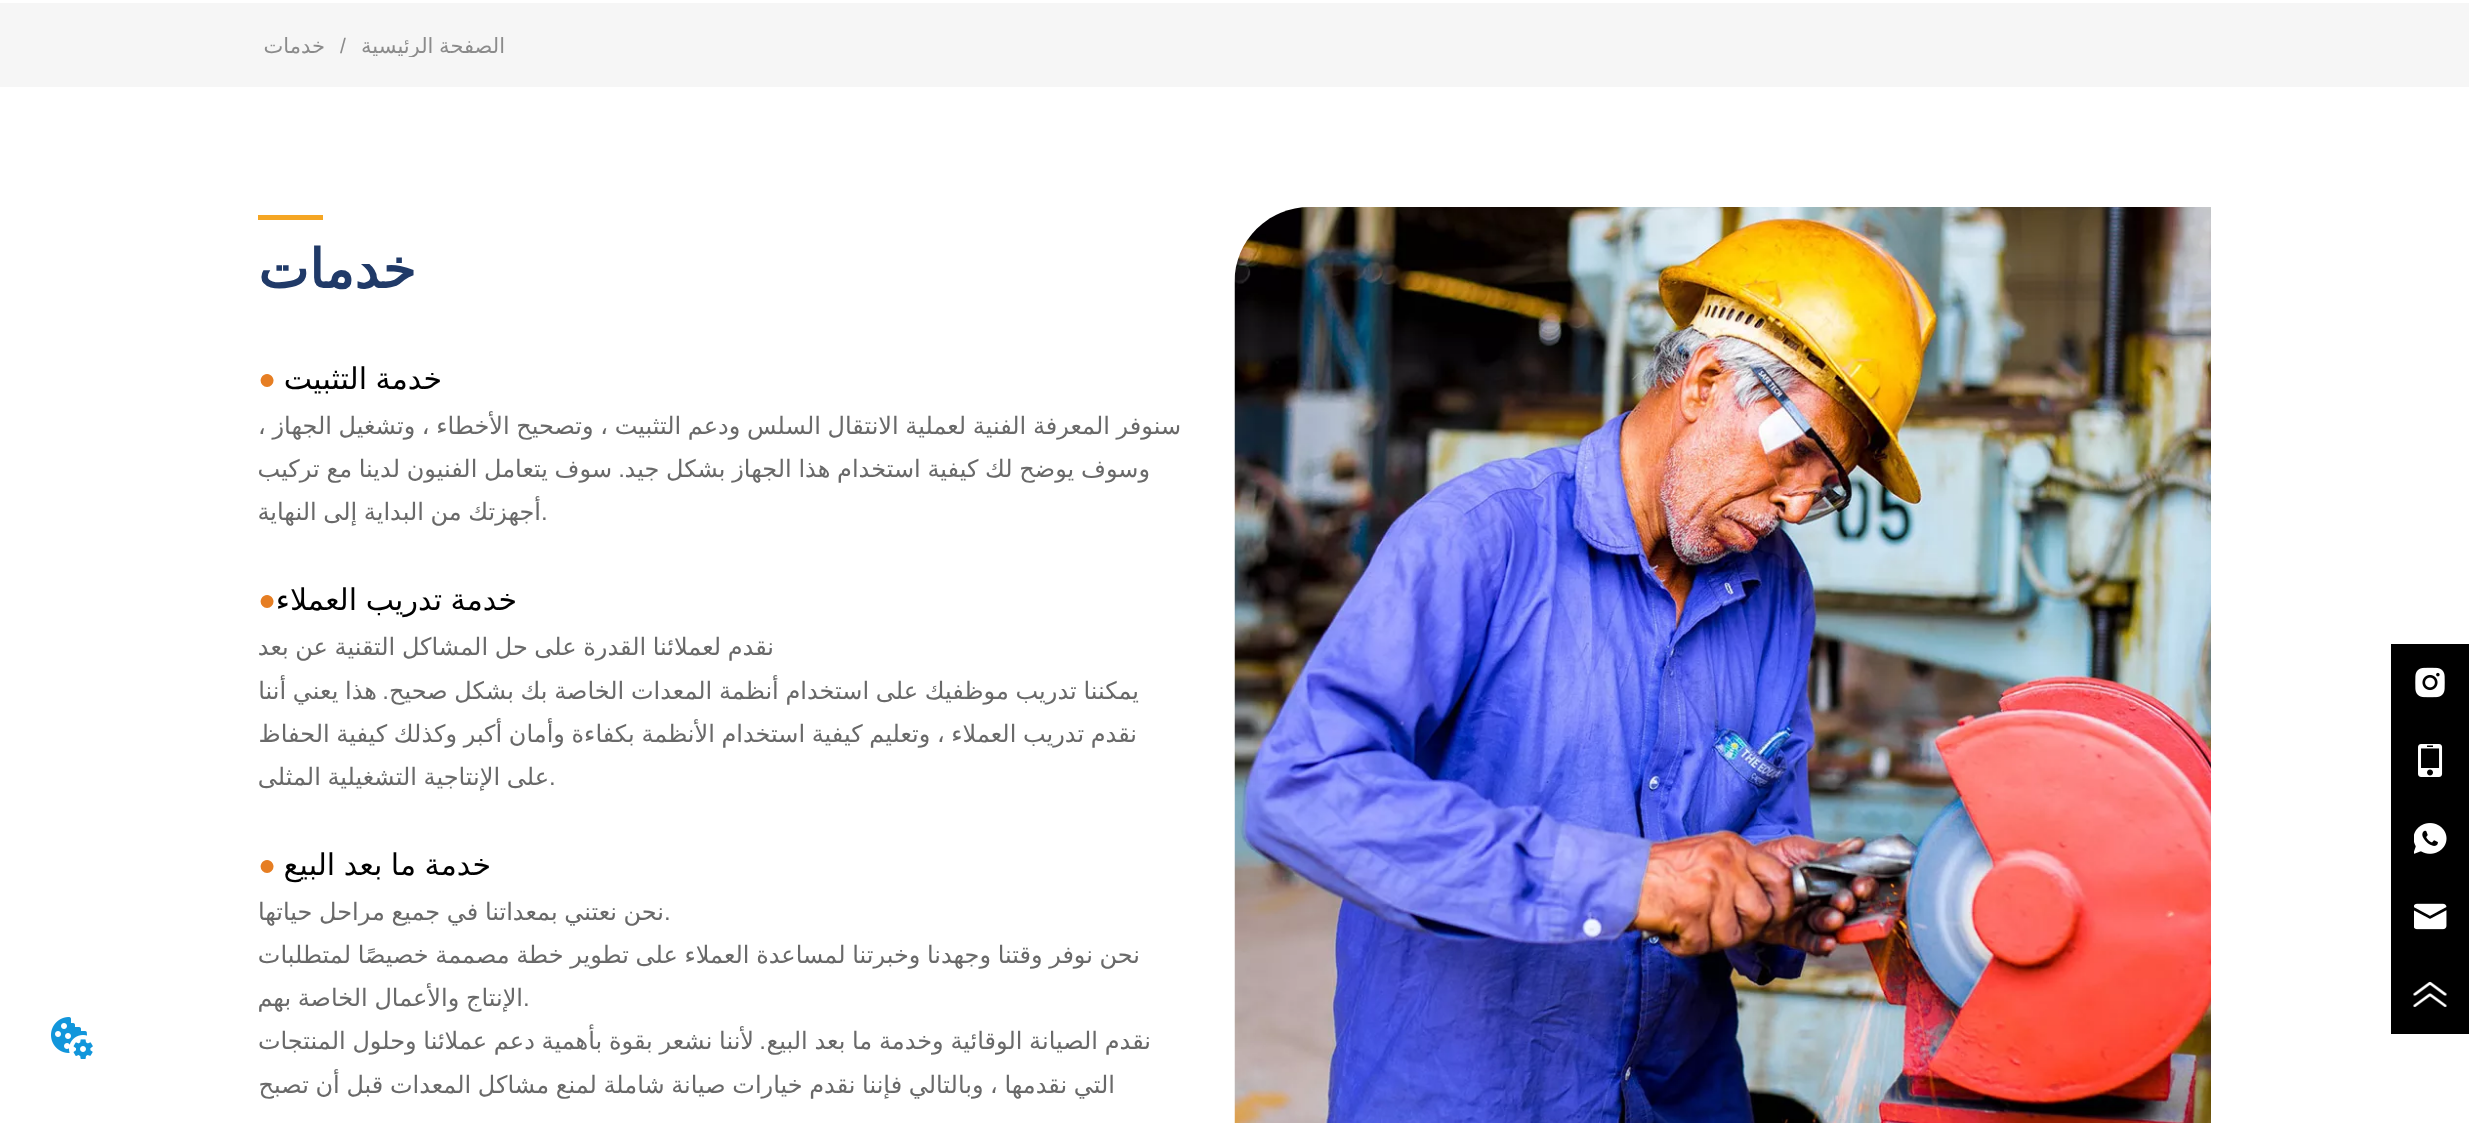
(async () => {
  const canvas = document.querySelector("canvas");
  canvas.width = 2469;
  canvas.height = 1123;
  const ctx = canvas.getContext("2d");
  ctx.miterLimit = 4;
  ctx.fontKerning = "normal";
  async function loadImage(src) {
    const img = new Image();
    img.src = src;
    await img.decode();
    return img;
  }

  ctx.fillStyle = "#ffffff";
  ctx.fillRect(0, 0, 2469, 1123);
  ctx.fillStyle = "#000000";
  ctx.fillRect(2391, 644, 78, 390);
  ctx.drawImage(await loadImage("img/1.png"), 2415, 667, 30, 31);
  ctx.drawImage(await loadImage("img/2.png"), 2418, 744, 25, 33);
  ctx.drawImage(await loadImage("img/3.png"), 2414, 823, 33, 31);
  ctx.drawImage(await loadImage("img/4.png"), 2414, 903, 33, 27);
  ctx.drawImage(await loadImage("img/5.png"), 2413, 981, 34, 26);
  ctx.fillStyle = "#f6f6f6";
  ctx.fillRect(0, 3, 2469, 84);
  ctx.drawImage(await loadImage("img/6.png"), 1234, 207, 977, 916);
  ctx.fillStyle = "#f5a623";
  ctx.fillRect(258, 215, 65, 5);
  ctx.drawImage(await loadImage("img/7.png"), 51, 1017, 42, 42);
  ctx.save();
  ctx.beginPath();
  ctx.rect(258, 33, 1953, 24);
  ctx.clip();
  ctx.wordSpacing = "-1px";
  ctx.direction = "rtl";
  ctx.font = "21px DejaVu Sans";
  ctx.fillStyle = "#8b8b8b";
  ctx.fillText("الصفحة الرئيسية", 505, 53);
  ctx.restore();
  ctx.font = "21px Liberation Sans";
  ctx.fillStyle = "#8b8b8b";
  ctx.fillText("/", 340, 53);
  ctx.direction = "rtl";
  ctx.font = "21px DejaVu Sans";
  ctx.fillText("خدمات", 325, 53);
  ctx.font = "bold 54px DejaVu Sans";
  ctx.fillStyle = "#203a68";
  ctx.fillText("خدمات", 416, 288);
  ctx.wordSpacing = "-1px";
  ctx.font = "30px DejaVu Sans";
  ctx.fillStyle = "#000000";
  ctx.fillText("خدمة التثبيت", 442, 389);
  ctx.wordSpacing = "0px";
  ctx.direction = "ltr";
  ctx.font = "30px Liberation Sans";
  ctx.fillStyle = "#e67e23";
  ctx.fillText("●", 258, 389);
  ctx.wordSpacing = "-1px";
  ctx.direction = "rtl";
  ctx.font = "24px DejaVu Sans";
  ctx.fillStyle = "#696969";
  ctx.fillText("سنوفر المعرفة الفنية لعملية الانتقال السلس ودعم التثبيت ، وتصحيح الأخطاء ، وتشغيل الجهاز ،", 1181, 434);
  ctx.wordSpacing = "-0.9px";
  ctx.fillText("وسوف يوضح لك كيفية استخدام هذا الجهاز بشكل جيد", 1150, 477);
  ctx.wordSpacing = "0px";
  ctx.font = "24px Liberation Sans";
  ctx.fillText(".", 625, 477);
  ctx.wordSpacing = "-0.9px";
  ctx.font = "24px DejaVu Sans";
  ctx.fillText("سوف يتعامل الفنيون لدينا مع تركيب", 612, 477);
  ctx.wordSpacing = "-1px";
  ctx.fillText("أجهزتك من البداية إلى النهاية", 541, 520);
  ctx.wordSpacing = "0px";
  ctx.direction = "ltr";
  ctx.font = "24px Liberation Sans";
  ctx.fillText(".", 541, 520);
  ctx.wordSpacing = "-1px";
  ctx.direction = "rtl";
  ctx.font = "30px DejaVu Sans";
  ctx.fillStyle = "#000000";
  ctx.fillText("خدمة تدريب العملاء", 517, 610);
  ctx.wordSpacing = "0px";
  ctx.direction = "ltr";
  ctx.font = "30px Liberation Sans";
  ctx.fillStyle = "#e67e23";
  ctx.fillText("●", 258, 610);
  ctx.wordSpacing = "-1px";
  ctx.direction = "rtl";
  ctx.font = "24px DejaVu Sans";
  ctx.fillStyle = "#696969";
  ctx.fillText("نقدم لعملائنا القدرة على حل المشاكل التقنية عن بعد", 774, 655);
  ctx.wordSpacing = "-0.9px";
  ctx.fillText("يمكننا تدريب موظفيك على استخدام أنظمة المعدات الخاصة بك بشكل صحيح", 1139, 699);
  ctx.wordSpacing = "0px";
  ctx.font = "24px Liberation Sans";
  ctx.fillText(".", 389, 699);
  ctx.wordSpacing = "-0.9px";
  ctx.font = "24px DejaVu Sans";
  ctx.fillText("هذا يعني أننا", 377, 699);
  ctx.wordSpacing = "-1px";
  ctx.fillText("نقدم تدريب العملاء ، وتعليم كيفية استخدام الأنظمة بكفاءة وأمان أكبر وكذلك كيفية الحفاظ", 1137, 742);
  ctx.wordSpacing = "0px";
  ctx.direction = "ltr";
  ctx.font = "24px Liberation Sans";
  ctx.fillText(".", 549, 785);
  ctx.wordSpacing = "-1px";
  ctx.direction = "rtl";
  ctx.font = "24px DejaVu Sans";
  ctx.fillText("على الإنتاجية التشغيلية المثلى", 549, 785);
  ctx.font = "30px DejaVu Sans";
  ctx.fillStyle = "#000000";
  ctx.fillText("خدمة ما بعد البيع", 491, 875);
  ctx.wordSpacing = "0px";
  ctx.direction = "ltr";
  ctx.font = "30px Liberation Sans";
  ctx.fillStyle = "#e67e23";
  ctx.fillText("●", 258, 875);
  ctx.wordSpacing = "-1px";
  ctx.direction = "rtl";
  ctx.font = "24px DejaVu Sans";
  ctx.fillStyle = "#696969";
  ctx.fillText("نحن نعتني بمعداتنا في جميع مراحل حياتها", 664, 920);
  ctx.wordSpacing = "0px";
  ctx.direction = "ltr";
  ctx.font = "24px Liberation Sans";
  ctx.fillText(".", 664, 920);
  ctx.wordSpacing = "-1px";
  ctx.direction = "rtl";
  ctx.font = "24px DejaVu Sans";
  ctx.fillText("نحن نوفر وقتنا وجهدنا وخبرتنا لمساعدة العملاء على تطوير خطة مصممة خصيصًا لمتطلبات", 1140, 963);
  ctx.wordSpacing = "0px";
  ctx.direction = "ltr";
  ctx.font = "24px Liberation Sans";
  ctx.fillText(".", 523, 1006);
  ctx.wordSpacing = "-1px";
  ctx.direction = "rtl";
  ctx.font = "24px DejaVu Sans";
  ctx.fillText("الإنتاج والأعمال الخاصة بهم", 523, 1006);
  ctx.wordSpacing = "-0.9px";
  ctx.fillText("نقدم الصيانة الوقائية وخدمة ما بعد البيع", 1151, 1049);
  ctx.wordSpacing = "0px";
  ctx.font = "24px Liberation Sans";
  ctx.fillText(".", 766, 1049);
  ctx.wordSpacing = "-0.9px";
  ctx.font = "24px DejaVu Sans";
  ctx.fillText("لأننا نشعر بقوة بأهمية دعم عملائنا وحلول المنتجات", 754, 1049);
  ctx.wordSpacing = "-1px";
  ctx.fillText("التي نقدمها ، وبالتالي فإننا نقدم خيارات صيانة شاملة لمنع مشاكل المعدات قبل أن تصبح", 1115, 1093);
})();
